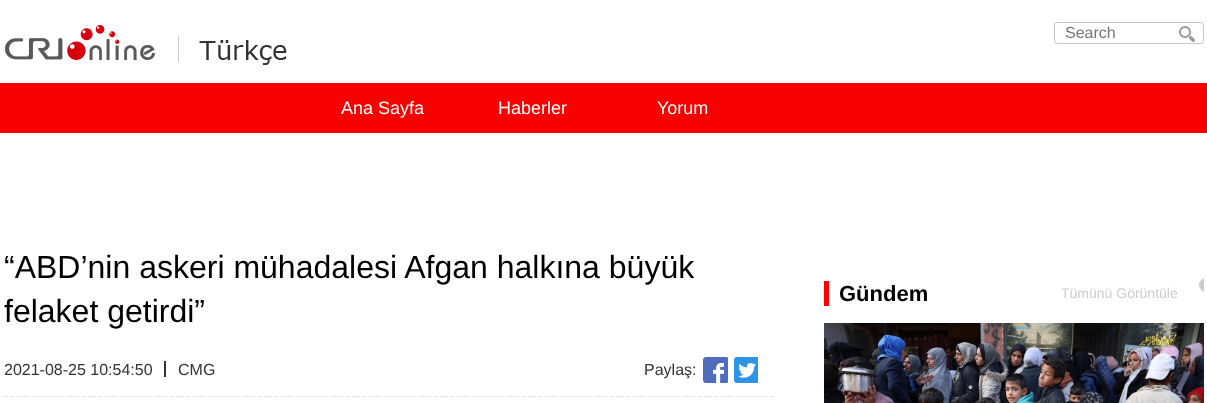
(async () => {
  const canvas = document.querySelector("canvas");
  canvas.width = 1207;
  canvas.height = 403;
  const ctx = canvas.getContext("2d");
  ctx.miterLimit = 4;
  ctx.fontKerning = "normal";
  async function loadImage(src) {
    const img = new Image();
    img.src = src;
    await img.decode();
    return img;
  }

  ctx.fillStyle = "#ffffff";
  ctx.fillRect(0, 0, 1207, 403);
  ctx.drawImage(await loadImage("img/1.png"), 5, 25, 282, 40);
  ctx.beginPath();
  ctx.roundRect(1054.5, 22.5, 149, 21, 2.5);
  ctx.strokeStyle = "#c7c7c7";
  ctx.stroke();
  ctx.drawImage(await loadImage("img/2.png"), 1179, 26, 16, 16);
  ctx.fillStyle = "#f70000";
  ctx.fillRect(0, 83, 1207, 50);
  ctx.drawImage(await loadImage("img/3.png"), 4, 396, 770, 1);
  ctx.fillStyle = "#333333";
  ctx.fillRect(164, 361, 2, 16);
  ctx.drawImage(await loadImage("img/4.png"), 703, 357, 25, 26);
  ctx.drawImage(await loadImage("img/5.png"), 734, 357, 24, 26);
  ctx.fillStyle = "#ff0000";
  ctx.fillRect(824, 281, 5, 25);
  ctx.drawImage(await loadImage("img/6.png"), 1199, 278, 5, 14);
  ctx.drawImage(await loadImage("img/7.png"), 824, 323, 380, 80);
  ctx.font = "16px Liberation Sans";
  ctx.fillStyle = "#757575";
  ctx.fillText("Search", 1065, 38);
  ctx.font = "18px Liberation Sans";
  ctx.fillStyle = "#ffffff";
  for (const [text, x, y] of [
    ["Ana Sayfa", 341, 114],
    ["Haberler", 498, 114],
    ["Yorum", 657, 114],
  ]) {
    ctx.fillText(text, x, y);
  }
  ctx.font = "32px Liberation Sans";
  ctx.fillStyle = "#000000";
  ctx.fillText("“ABD’nin askeri mühadalesi Afgan halkına büyük", 4, 278);
  ctx.fillText("felaket getirdi”", 4, 322);
  ctx.font = "16px Liberation Sans";
  ctx.fillStyle = "#333333";
  for (const [text, x, y] of [
    ["2021-08-25 10:54:50", 4, 375],
    ["CMG", 178, 375],
    ["Paylaş:", 644, 375],
  ]) {
    ctx.fillText(text, x, y);
  }
  ctx.font = "bold 22px Liberation Sans";
  ctx.fillStyle = "#000000";
  ctx.fillText("Gündem", 839, 301);
  ctx.font = "14px Liberation Sans";
  ctx.fillStyle = "#cccccc";
  ctx.fillText("Tümünü Görüntüle", 1061, 298);
})();
